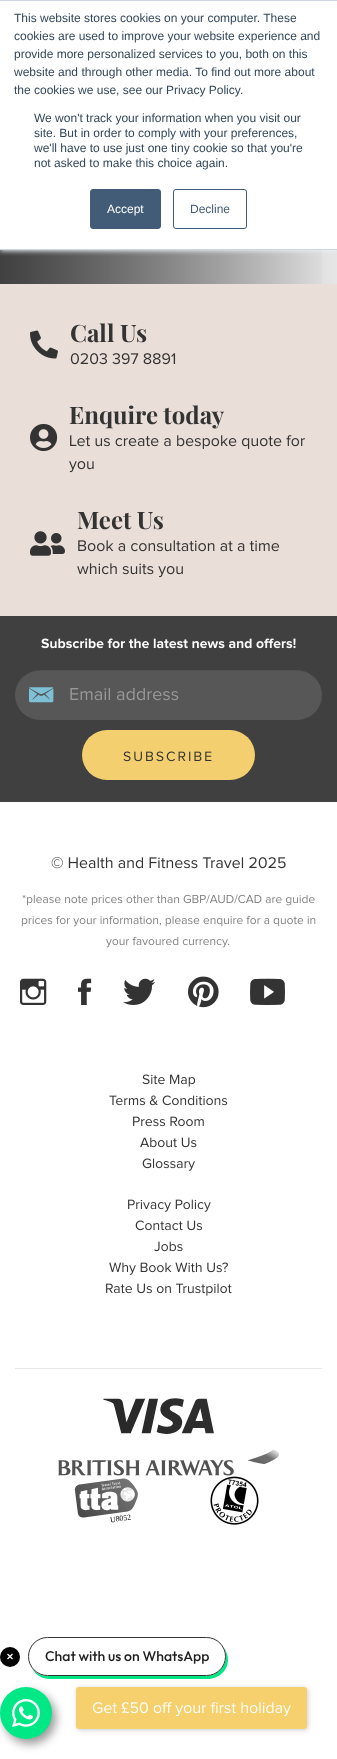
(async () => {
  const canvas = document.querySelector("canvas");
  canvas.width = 337;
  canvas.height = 1759;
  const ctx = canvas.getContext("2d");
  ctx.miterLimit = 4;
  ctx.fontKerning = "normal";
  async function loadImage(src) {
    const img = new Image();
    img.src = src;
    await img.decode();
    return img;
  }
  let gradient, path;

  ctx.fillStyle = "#ffffff";
  ctx.fillRect(0, 0, 337, 1759);
  gradient = ctx.createLinearGradient(337, 192, 0, 192);
  gradient.addColorStop(0, "#e6e6e6");
  gradient.addColorStop(1, "#808080");
  ctx.fillStyle = gradient;
  ctx.fillRect(0, 250, 337, 34);
  gradient = ctx.createLinearGradient(337, 192, 0, 192);
  gradient.addColorStop(0, "rgba(0, 0, 0, 0)");
  gradient.addColorStop(1, "rgba(0, 0, 0, 0.5)");
  ctx.fillStyle = gradient;
  ctx.fillRect(0, 250, 322, 34);
  ctx.fillStyle = "#eaf0f6";
  ctx.filter = "blur(2.5px)";
  ctx.beginPath();
  ctx.rect(0, 1, 337, 250);
  ctx.fill();
  ctx.filter = "none";
  for (const [x, y, w, h, color] of [
    [0, 1, 337, 248, "#ffffff"],
    [0, 0, 337, 1, "#cbd6e2"],
    [0, 249, 337, 1, "#cbd6e2"],
  ]) {
    ctx.fillStyle = color;
    ctx.fillRect(x, y, w, h);
  }
  ctx.fillStyle = "#425b76";
  ctx.beginPath();
  ctx.roundRect(90.5, 189.5, 70, 39, 2.5);
  ctx.fill();
  ctx.strokeStyle = "#425b76";
  ctx.stroke();
  ctx.beginPath();
  ctx.roundRect(173.5, 189.5, 73, 39, 2.5);
  ctx.stroke();
  ctx.fillStyle = "#e9ded8";
  ctx.fillRect(0, 284, 337, 332);
  ctx.drawImage(await loadImage("img/1.png"), 30, 330, 28, 29);
  ctx.drawImage(await loadImage("img/2.png"), 70, 353, 106, 12);
  ctx.drawImage(await loadImage("img/3.png"), 70, 435, 235, 14);
  ctx.drawImage(await loadImage("img/4.png"), 69, 461, 25, 12);
  ctx.drawImage(await loadImage("img/5.png"), 30, 423, 28, 29);
  ctx.drawImage(await loadImage("img/6.png"), 78, 540, 202, 12);
  ctx.drawImage(await loadImage("img/7.png"), 77, 563, 106, 15);
  ctx.drawImage(await loadImage("img/8.png"), 30, 531, 35, 25);
  ctx.fillStyle = "#404040";
  ctx.fillRect(0, 616, 337, 186);
  ctx.drawImage(await loadImage("img/9.png"), 41, 638, 255, 11);
  ctx.fillStyle = "#575757";
  ctx.beginPath();
  ctx.roundRect(15, 670, 307, 50, 25);
  ctx.fill();
  ctx.fillStyle = "rgba(0, 0, 0, 0.07)";
  path = new Path2D("M40 671H297C311 671 322 682 322 695C322 681 311 670 297 670H40C26 670 15 681 15 695C15 682 26 671 40 671Z");
  ctx.fill(path);
  ctx.drawImage(await loadImage("img/10.png"), 70, 688, 109, 13);
  ctx.drawImage(await loadImage("img/11.png"), 29, 687, 25, 16);
  ctx.fillStyle = "#f4cf70";
  ctx.beginPath();
  ctx.roundRect(82, 730, 173, 50, 25);
  ctx.fill();
  ctx.drawImage(await loadImage("img/12.png"), 123, 751, 89, 11);
  ctx.drawImage(await loadImage("img/13.png"), 51, 857, 235, 12);
  ctx.drawImage(await loadImage("img/14.png"), 22, 894, 293, 12);
  ctx.drawImage(await loadImage("img/15.png"), 21, 915, 295, 12);
  ctx.drawImage(await loadImage("img/16.png"), 106, 936, 124, 12);
  ctx.drawImage(await loadImage("img/17.png"), 20, 978, 27, 27);
  ctx.drawImage(await loadImage("img/18.png"), 78, 978, 14, 27);
  ctx.drawImage(await loadImage("img/19.png"), 123, 978, 32, 27);
  ctx.drawImage(await loadImage("img/20.png"), 188, 976, 31, 32);
  ctx.drawImage(await loadImage("img/21.png"), 250, 978, 35, 27);
  ctx.drawImage(await loadImage("img/22.png"), 142, 1074, 54, 13);
  ctx.drawImage(await loadImage("img/23.png"), 109, 1095, 119, 11);
  ctx.drawImage(await loadImage("img/24.png"), 133, 1116, 71, 11);
  ctx.drawImage(await loadImage("img/25.png"), 140, 1137, 57, 11);
  ctx.drawImage(await loadImage("img/26.png"), 142, 1158, 53, 13);
  ctx.drawImage(await loadImage("img/27.png"), 128, 1199, 83, 13);
  ctx.drawImage(await loadImage("img/28.png"), 135, 1220, 67, 11);
  ctx.drawImage(await loadImage("img/29.png"), 154, 1241, 29, 11);
  ctx.drawImage(await loadImage("img/30.png"), 109, 1262, 119, 13);
  ctx.drawImage(await loadImage("img/31.png"), 106, 1283, 126, 13);
  ctx.fillStyle = "#e7e7e7";
  ctx.fillRect(15, 1368, 307, 1);
  ctx.drawImage(await loadImage("img/32.png"), 103, 1398, 111, 36);
  ctx.drawImage(await loadImage("img/33.png"), 58, 1449, 221, 27);
  ctx.drawImage(await loadImage("img/34.png"), 74, 1478, 64, 45);
  ctx.drawImage(await loadImage("img/35.png"), 210, 1476, 49, 49);
  ctx.fillStyle = "#000000";
  ctx.beginPath();
  ctx.arc(10, 1657, 10, 0, Math.PI * 2);
  ctx.fill();
  path = new Path2D("M7.5 1654L12.5 1659M7.5 1659L12.5 1654");
  ctx.strokeStyle = "#ffffff";
  ctx.lineWidth = 1.3;
  ctx.stroke(path);
  ctx.fillStyle = "rgba(0, 0, 0, 0.4)";
  ctx.filter = "blur(5px)";
  ctx.beginPath();
  ctx.roundRect(4, 1692, 52, 52, 26);
  ctx.fill();
  ctx.filter = "none";
  ctx.fillStyle = "#00e785";
  path = new Path2D("M32 1669C36 1675 42 1679 50 1679H208C219 1679 228 1670 228 1660C228 1655 226 1651 224 1647C225 1650 226 1653 226 1656C226 1667 217 1676 206 1676H48C41 1676 36 1673 32 1669Z");
  ctx.fill(path);
  ctx.fillStyle = "#ffffff";
  ctx.beginPath();
  ctx.roundRect(28.5, 1637.5, 197, 38, 19);
  ctx.fill();
  ctx.strokeStyle = "#363636";
  ctx.lineWidth = 1;
  ctx.stroke();
  ctx.fillStyle = "#00e785";
  ctx.beginPath();
  ctx.arc(26, 1713, 26, 0, Math.PI * 2);
  ctx.fill();
  ctx.drawImage(await loadImage("img/36.png"), 12, 1699, 28, 28);
  ctx.fillStyle = "rgba(0, 0, 0, 0.2)";
  ctx.filter = "blur(2.5px)";
  ctx.beginPath();
  ctx.roundRect(77, 1688, 231, 42, 3);
  ctx.fill();
  ctx.filter = "none";
  ctx.fillStyle = "#f5d06c";
  ctx.beginPath();
  ctx.roundRect(76, 1687, 231, 42, 3);
  ctx.fill();
  ctx.drawImage(await loadImage("img/37.png"), 92, 1702, 199, 15);
  ctx.font = "12px Liberation Sans";
  ctx.fillStyle = "#33475b";
  for (const [text, x, y] of [
    ["This website stores cookies on your computer. These", 14, 22],
    ["cookies are used to improve your website experience and", 14, 40],
    ["provide more personalized services to you, both on this", 14, 58],
    ["website and through other media. To find out more about", 14, 76],
    ["the cookies we use, see our Privacy Policy.", 14, 94],
    ["We won't track your information when you visit our", 34, 122],
    ["site. But in order to comply with your preferences,", 34, 137],
    ["we'll have to use just one tiny cookie so that you're", 34, 152],
    ["not asked to make this choice again.", 34, 167],
  ]) {
    ctx.fillText(text, x, y);
  }
  ctx.fillStyle = "#ffffff";
  ctx.fillText("Accept", 107, 213);
  ctx.fillStyle = "#425b76";
  ctx.fillText("Decline", 190, 213);
  ctx.font = "bold 24px Playfair Display";
  ctx.fillStyle = "#333333";
  for (const [text, x, y] of [
    ["Call Us", 70, 342],
    ["Enquire today", 69, 424],
    ["Meet Us", 77, 529],
  ]) {
    ctx.fillText(text, x, y);
  }
  ctx.font = "500 14px Outfit";
  ctx.fillStyle = "#202020";
  ctx.fillText("Chat with us on WhatsApp", 45, 1661);
})();
